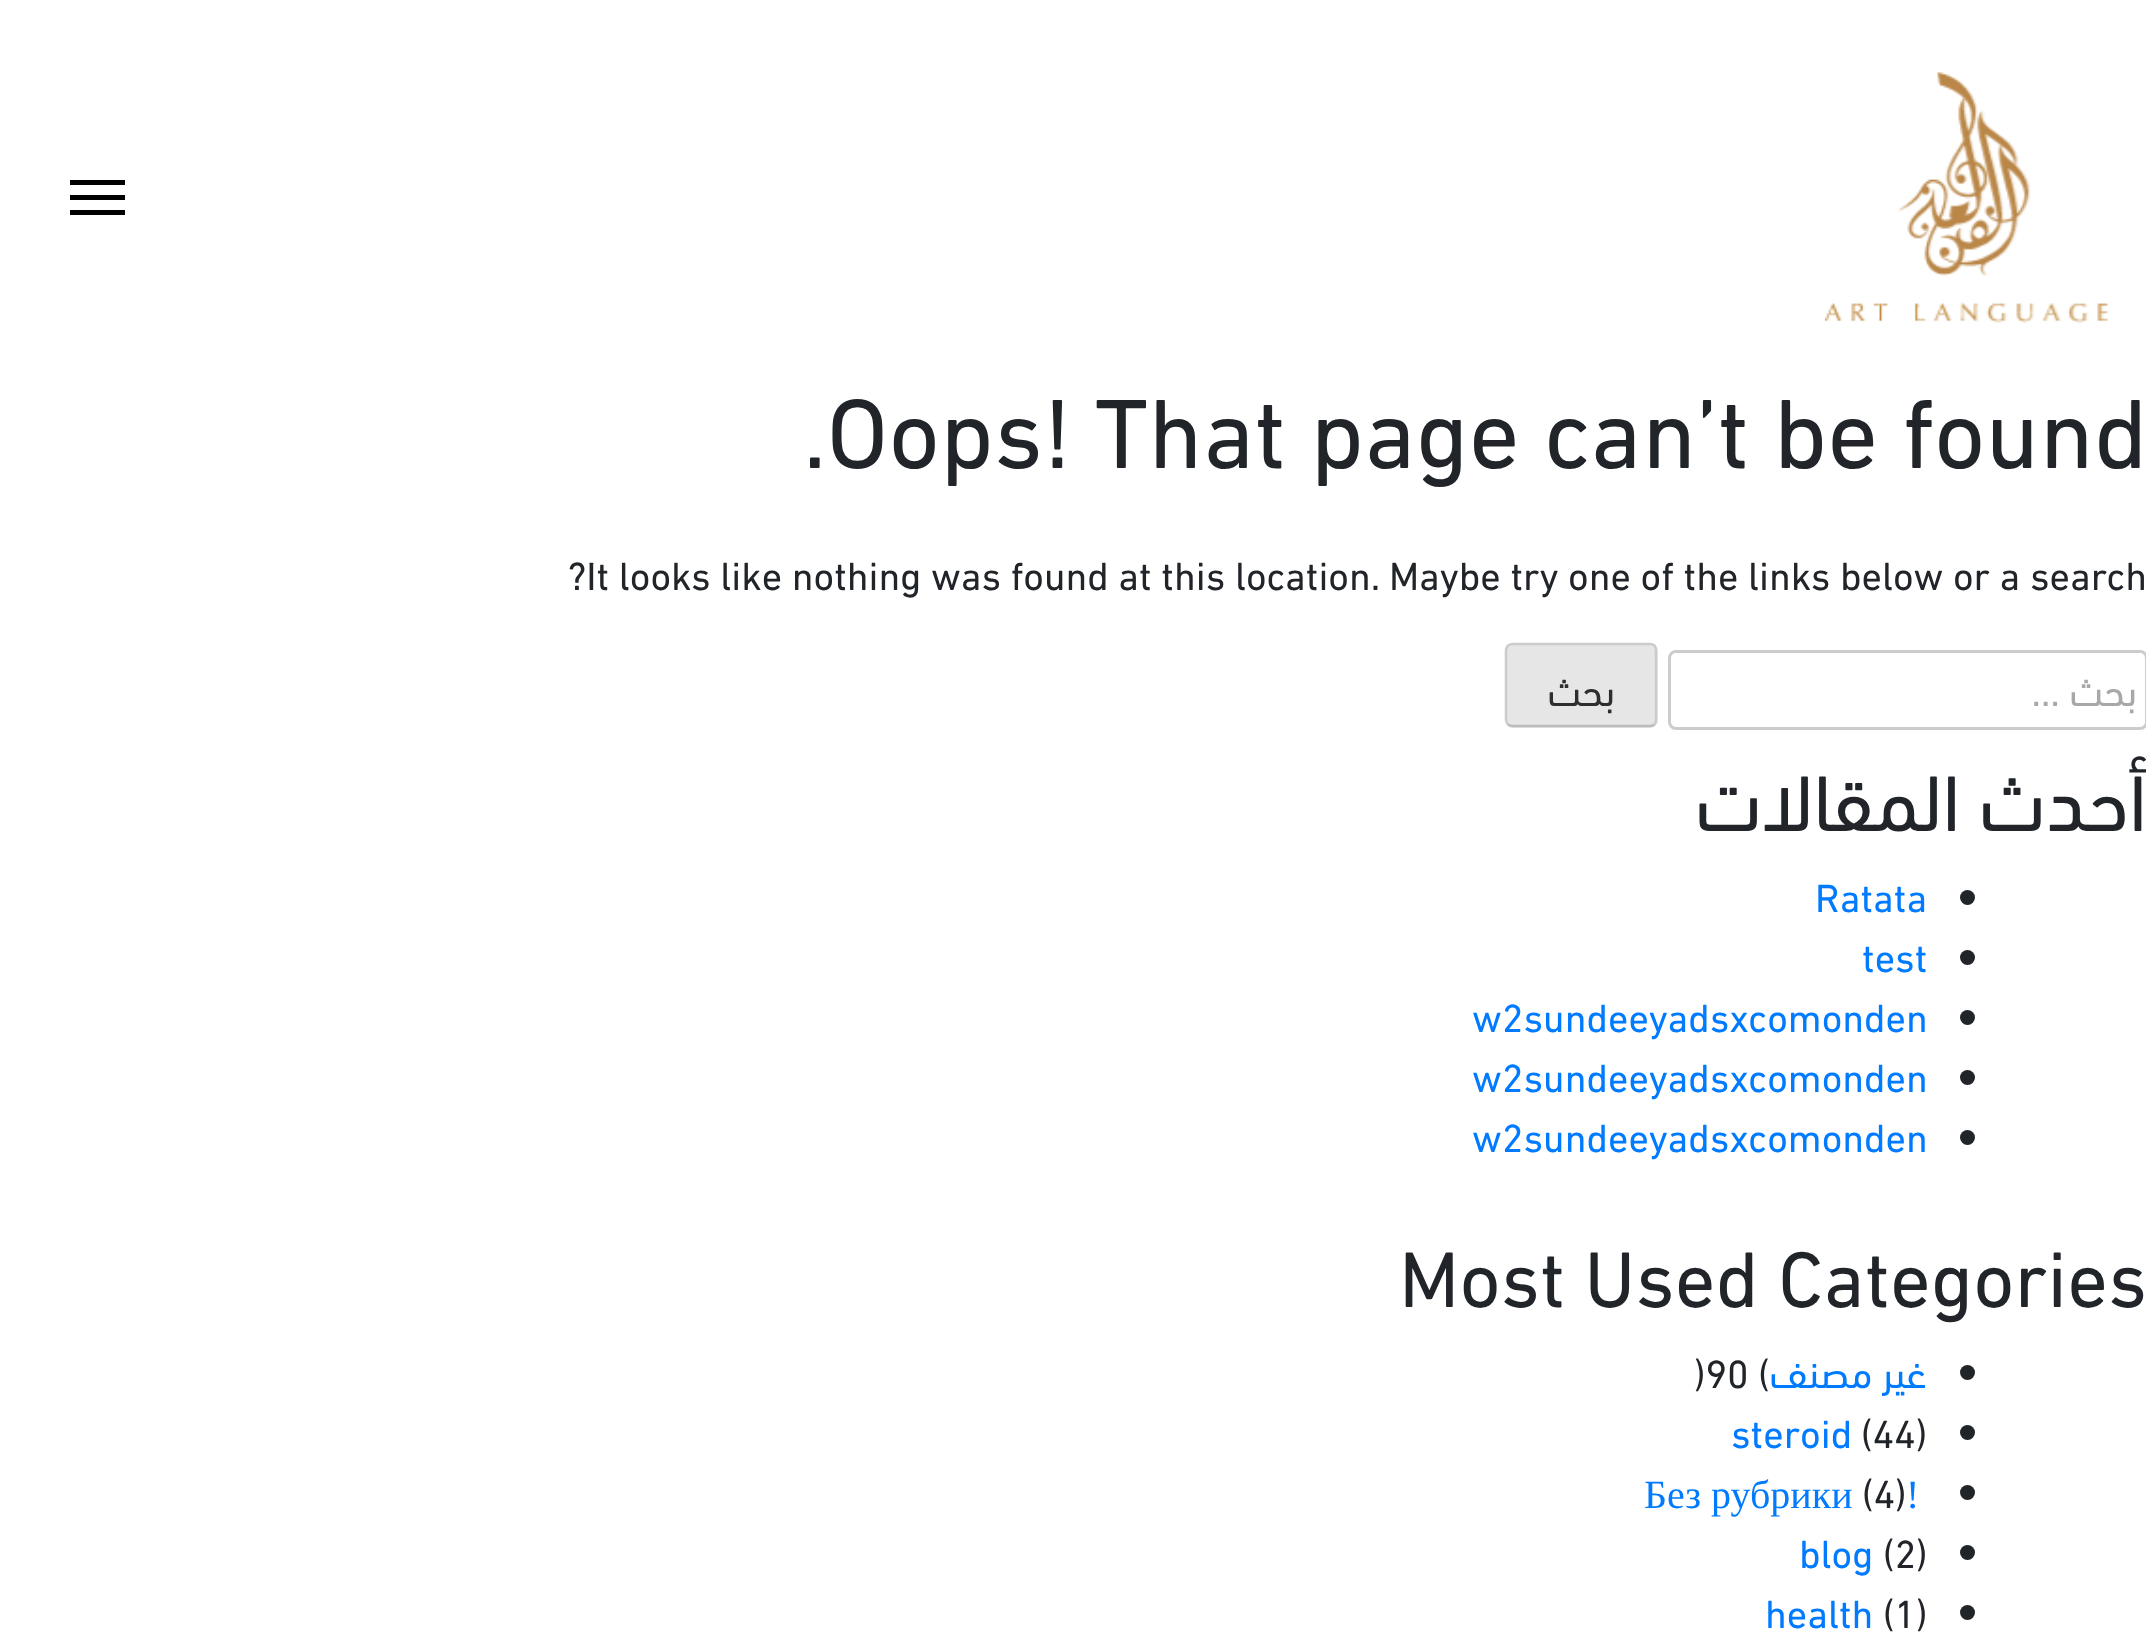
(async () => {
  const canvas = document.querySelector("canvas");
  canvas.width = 2146;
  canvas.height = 1633;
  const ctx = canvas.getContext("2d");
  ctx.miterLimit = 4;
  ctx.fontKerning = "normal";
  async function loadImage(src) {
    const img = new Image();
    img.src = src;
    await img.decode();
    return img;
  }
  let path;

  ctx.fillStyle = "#ffffff";
  ctx.fillRect(0, 0, 2146, 1633);
  for (const [x, y, w, h, color] of [
    [70, 180, 55, 5, "#000000"],
    [70, 195, 55, 5, "#000000"],
    [70, 210, 55, 5, "#000000"],
  ]) {
    ctx.fillStyle = color;
    ctx.fillRect(x, y, w, h);
  }
  ctx.drawImage(await loadImage("img/1.png"), 1825, 72, 283, 251);
  ctx.fillStyle = "#e6e6e6";
  ctx.beginPath();
  ctx.roundRect(1505, 643, 153, 85, 8);
  ctx.fill();
  path = new Path2D("M1654.5 724.5C1653 725.5 1651.5 726 1650 726H1512.5C1511 726 1509.5 725.5 1508 724.5");
  ctx.strokeStyle = "#bbbbbb";
  ctx.lineWidth = 2.5;
  ctx.stroke(path);
  path = new Path2D("M1508 724.5C1507 723 1506 721.5 1506 720V650C1506 648.5 1507 647 1508 645.5C1509.5 644.5 1511 644 1512.5 644H1650C1651.5 644 1653 644.5 1654.5 645.5C1655.5 647 1656 648.5 1656 650V720C1656 721.5 1655.5 723 1654.5 724.5");
  ctx.strokeStyle = "#cccccc";
  ctx.stroke(path);
  ctx.beginPath();
  ctx.roundRect(1669.5, 651.5, 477, 77, 6.5);
  ctx.lineWidth = 3;
  ctx.stroke();
  ctx.fillStyle = "#212529";
  ctx.beginPath();
  ctx.arc(1967.5, 897.5, 7.5, 0, Math.PI * 2);
  ctx.fill();
  ctx.beginPath();
  ctx.arc(1967.5, 957.5, 7.5, 0, Math.PI * 2);
  ctx.fill();
  ctx.beginPath();
  ctx.arc(1967.5, 1017.5, 7.5, 0, Math.PI * 2);
  ctx.fill();
  ctx.beginPath();
  ctx.arc(1967.5, 1077.5, 7.5, 0, Math.PI * 2);
  ctx.fill();
  ctx.beginPath();
  ctx.arc(1967.5, 1137.5, 7.5, 0, Math.PI * 2);
  ctx.fill();
  ctx.beginPath();
  ctx.arc(1967.5, 1372.5, 7.5, 0, Math.PI * 2);
  ctx.fill();
  ctx.beginPath();
  ctx.arc(1967.5, 1432.5, 7.5, 0, Math.PI * 2);
  ctx.fill();
  ctx.beginPath();
  ctx.arc(1967.5, 1492.5, 7.5, 0, Math.PI * 2);
  ctx.fill();
  ctx.beginPath();
  ctx.arc(1967.5, 1552.5, 7.5, 0, Math.PI * 2);
  ctx.fill();
  ctx.beginPath();
  ctx.arc(1967.5, 1612.5, 7.5, 0, Math.PI * 2);
  ctx.fill();
  ctx.font = "100px 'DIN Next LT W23'";
  ctx.fillText(".Oops! That page can’t be found", 803, 468);
  ctx.font = "40px 'DIN Next LT W23'";
  ctx.fillText("?It looks like nothing was found at this location. Maybe try one of the links below or a search", 568, 590);
  ctx.direction = "rtl";
  ctx.fillStyle = "#2e2e2e";
  ctx.fillText("بحث", 1615, 706);
  ctx.fillStyle = "#a8a8a8";
  ctx.fillText("بحث …", 2137, 706);
  ctx.font = "80px 'DIN Next LT W23'";
  ctx.fillStyle = "#212529";
  ctx.fillText("أحدث المقالات", 2147, 831);
  ctx.direction = "ltr";
  ctx.font = "40px 'DIN Next LT W23'";
  ctx.fillStyle = "#007bff";
  for (const [text, x, y] of [
    ["Ratata", 1815, 912],
    ["test", 1862, 972],
    ["w2sundeeyadsxcomonden", 1472, 1032],
    ["w2sundeeyadsxcomonden", 1472, 1092],
    ["w2sundeeyadsxcomonden", 1472, 1152],
  ]) {
    ctx.fillText(text, x, y);
  }
  ctx.font = "80px 'DIN Next LT W23'";
  ctx.fillStyle = "#212529";
  ctx.fillText("Most Used Categories", 1399, 1307);
  ctx.font = "40px 'DIN Next LT W23'";
  ctx.fillText(")90 (", 1694, 1388);
  ctx.direction = "rtl";
  ctx.fillStyle = "#007bff";
  ctx.fillText("غير مصنف", 1927, 1388);
  ctx.direction = "ltr";
  ctx.fillText("steroid", 1731, 1448);
  ctx.fillStyle = "#212529";
  ctx.fillText("(44)", 1861, 1448);
  ctx.font = "40px Liberation Serif";
  ctx.fillStyle = "#007bff";
  ctx.fillText("Без рубрики", 1644, 1508);
  ctx.font = "40px 'DIN Next LT W23'";
  ctx.fillStyle = "#212529";
  ctx.fillText("(4)", 1862, 1508);
  ctx.font = "40px Liberation Serif";
  ctx.fillStyle = "#007bff";
  ctx.fillText("!", 1906, 1508);
  ctx.font = "40px 'DIN Next LT W23'";
  ctx.fillText("blog", 1799, 1568);
  ctx.fillStyle = "#212529";
  ctx.fillText("(2)", 1883, 1568);
  ctx.fillStyle = "#007bff";
  ctx.fillText("health", 1765, 1628);
  ctx.fillStyle = "#212529";
  ctx.fillText("(1)", 1883, 1628);
})();
